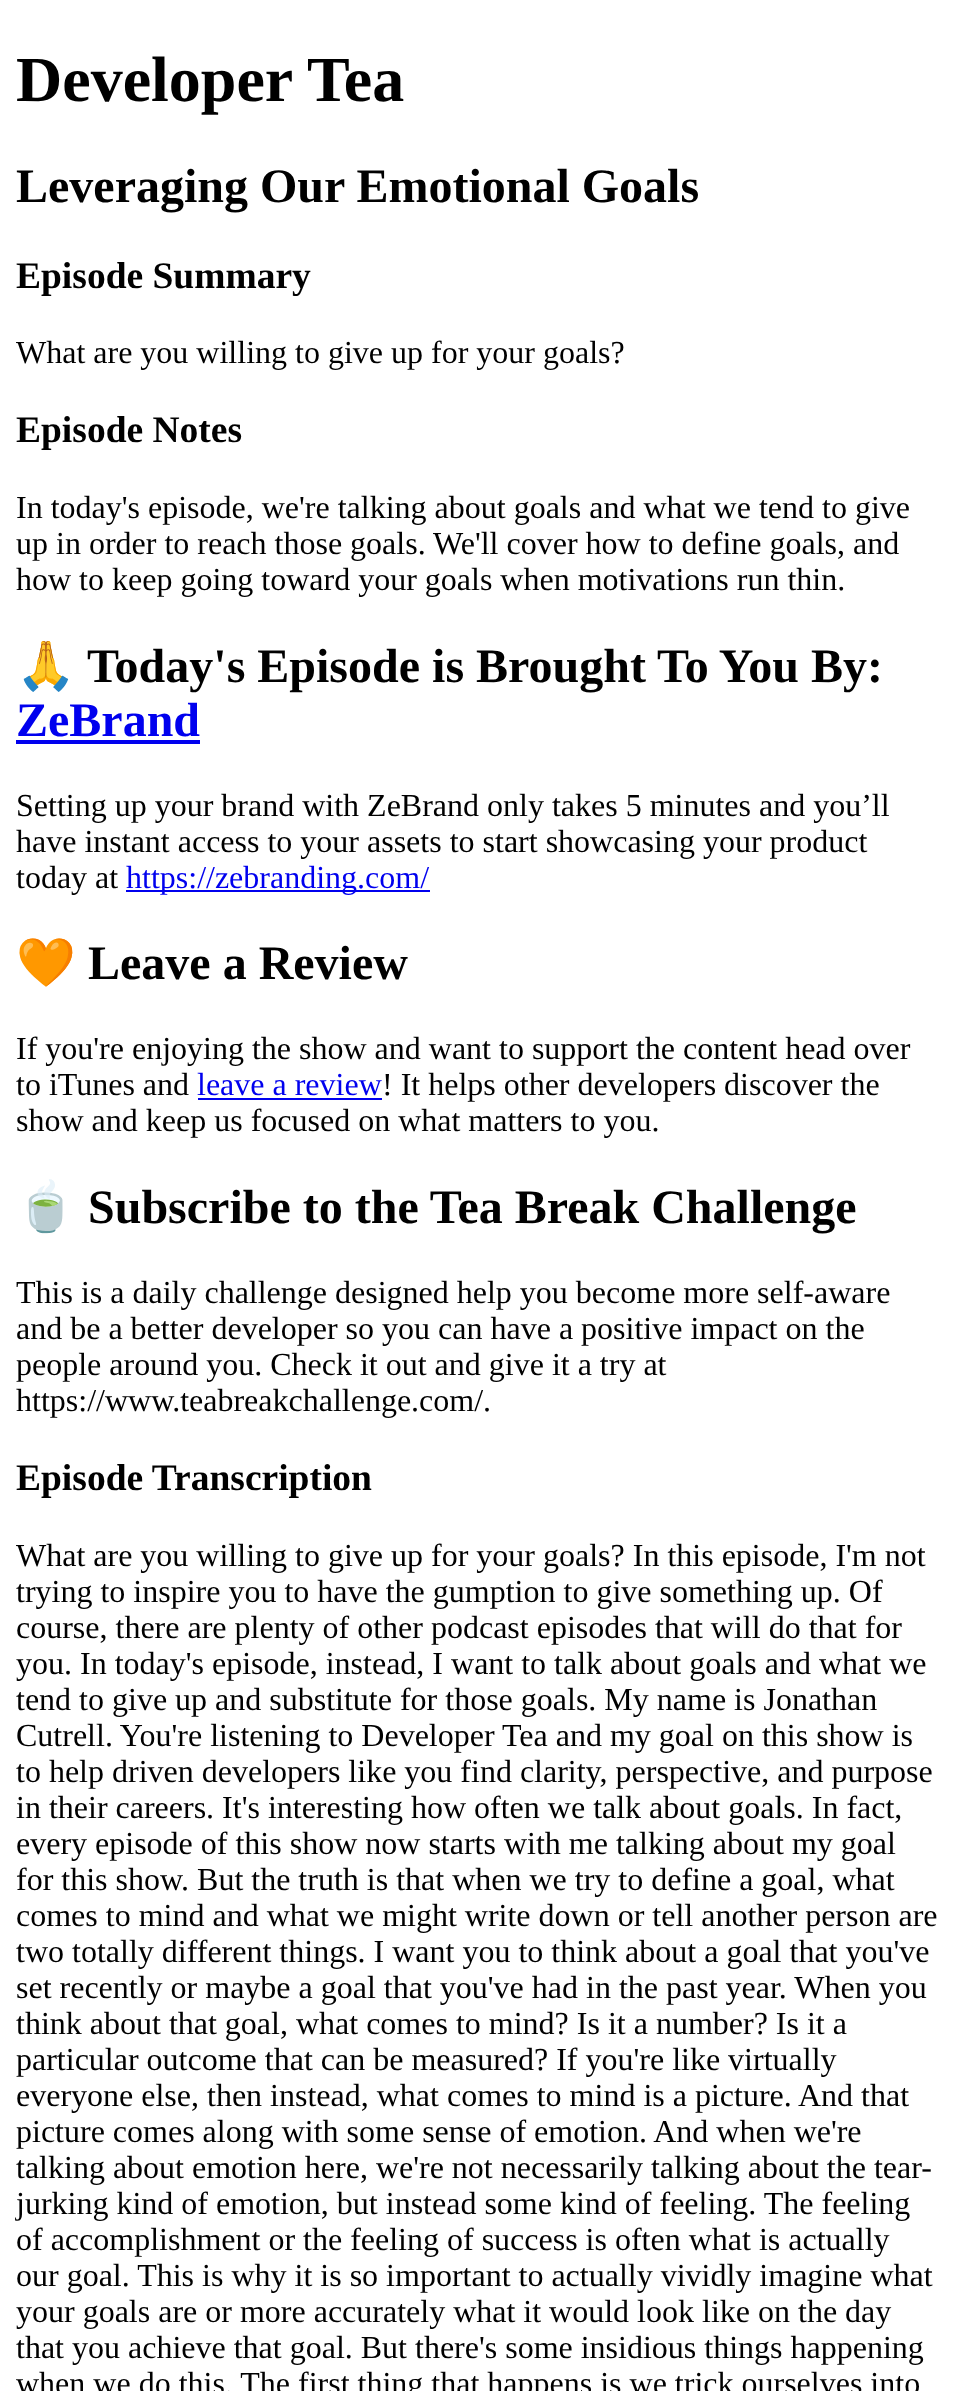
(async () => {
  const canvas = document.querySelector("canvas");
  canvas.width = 954;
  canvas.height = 2391;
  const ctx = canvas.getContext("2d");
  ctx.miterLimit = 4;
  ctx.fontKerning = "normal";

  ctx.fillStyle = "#ffffff";
  ctx.fillRect(0, 0, 954, 2391);
  for (const [x, y, w, h, color] of [
    [16, 740, 184, 4, "#0000ee"],
    [126, 890, 304, 2, "#0000ee"],
    [198, 1098, 184, 2, "#0000ee"],
  ]) {
    ctx.fillStyle = color;
    ctx.fillRect(x, y, w, h);
  }
  ctx.font = "bold 64px Liberation Serif";
  ctx.fillStyle = "#000000";
  ctx.fillText("Developer Tea", 16, 101);
  ctx.font = "bold 48px Liberation Serif";
  ctx.fillText("Leveraging Our Emotional Goals", 16, 202);
  ctx.font = "bold 37.5px Liberation Serif";
  ctx.fillText("Episode Summary", 16, 288);
  ctx.font = "32px Liberation Serif";
  ctx.fillText("What are you willing to give up for your goals?", 16, 363);
  ctx.font = "bold 37.5px Liberation Serif";
  ctx.fillText("Episode Notes", 16, 442);
  ctx.font = "32px Liberation Serif";
  for (const [text, x, y] of [
    ["In today's episode, we're talking about goals and what we tend to give", 16, 518],
    ["up in order to reach those goals. We'll cover how to define goals, and", 16, 554],
    ["how to keep going toward your goals when motivations run thin.", 16, 590],
  ]) {
    ctx.fillText(text, x, y);
  }
  ctx.font = "bold 48px Noto Color Emoji";
  ctx.fillText("🙏", 16, 682);
  ctx.font = "bold 48px Liberation Serif";
  ctx.fillText("Today's Episode is Brought To You By:", 87, 682);
  ctx.fillStyle = "#0000ee";
  ctx.fillText("ZeBrand", 16, 736);
  ctx.font = "32px Liberation Serif";
  ctx.fillStyle = "#000000";
  for (const [text, x, y] of [
    ["Setting up your brand with ZeBrand only takes 5 minutes and you’ll", 16, 816],
    ["have instant access to your assets to start showcasing your product", 16, 852],
    ["today at", 16, 888],
  ]) {
    ctx.fillText(text, x, y);
  }
  ctx.fillStyle = "#0000ee";
  ctx.fillText("https://zebranding.com/", 126, 888);
  ctx.font = "bold 48px Noto Color Emoji";
  ctx.fillStyle = "#000000";
  ctx.fillText("🧡", 16, 979);
  ctx.font = "bold 48px Liberation Serif";
  ctx.fillText("Leave a Review", 88, 979);
  ctx.font = "32px Liberation Serif";
  ctx.fillText("If you're enjoying the show and want to support the content head over", 16, 1059);
  ctx.fillText("to iTunes and", 16, 1095);
  ctx.fillStyle = "#0000ee";
  ctx.fillText("leave a review", 197, 1095);
  ctx.fillStyle = "#000000";
  ctx.fillText("! It helps other developers discover the", 382, 1095);
  ctx.fillText("show and keep us focused on what matters to you.", 16, 1131);
  ctx.font = "bold 48px Noto Color Emoji";
  ctx.fillText("🍵", 16, 1223);
  ctx.font = "bold 48px Liberation Serif";
  ctx.fillText("Subscribe to the Tea Break Challenge", 88, 1223);
  ctx.font = "32px Liberation Serif";
  for (const [text, x, y] of [
    ["This is a daily challenge designed help you become more self-aware", 16, 1303],
    ["and be a better developer so you can have a positive impact on the", 16, 1339],
    ["people around you. Check it out and give it a try at", 16, 1375],
    ["https://www.teabreakchallenge.com/.", 16, 1411],
  ]) {
    ctx.fillText(text, x, y);
  }
  ctx.font = "bold 37.5px Liberation Serif";
  ctx.fillText("Episode Transcription", 16, 1490);
  ctx.font = "32px Liberation Serif";
  for (const [text, x, y] of [
    ["What are you willing to give up for your goals? In this episode, I'm not", 16, 1566],
    ["trying to inspire you to have the gumption to give something up. Of", 16, 1602],
    ["course, there are plenty of other podcast episodes that will do that for", 16, 1638],
    ["you. In today's episode, instead, I want to talk about goals and what we", 16, 1674],
    ["tend to give up and substitute for those goals. My name is Jonathan", 16, 1710],
    ["Cutrell. You're listening to Developer Tea and my goal on this show is", 16, 1746],
    ["to help driven developers like you find clarity, perspective, and purpose", 16, 1782],
    ["in their careers. It's interesting how often we talk about goals. In fact,", 16, 1818],
    ["every episode of this show now starts with me talking about my goal", 16, 1854],
    ["for this show. But the truth is that when we try to define a goal, what", 16, 1890],
    ["comes to mind and what we might write down or tell another person are", 16, 1926],
    ["two totally different things. I want you to think about a goal that you've", 16, 1962],
    ["set recently or maybe a goal that you've had in the past year. When you", 16, 1998],
    ["think about that goal, what comes to mind? Is it a number? Is it a", 16, 2034],
    ["particular outcome that can be measured? If you're like virtually", 16, 2070],
    ["everyone else, then instead, what comes to mind is a picture. And that", 16, 2106],
    ["picture comes along with some sense of emotion. And when we're", 16, 2142],
    ["talking about emotion here, we're not necessarily talking about the tear-", 16, 2178],
    ["jurking kind of emotion, but instead some kind of feeling. The feeling", 16, 2214],
    ["of accomplishment or the feeling of success is often what is actually", 16, 2250],
    ["our goal. This is why it is so important to actually vividly imagine what", 16, 2286],
    ["your goals are or more accurately what it would look like on the day", 16, 2322],
    ["that you achieve that goal. But there's some insidious things happening", 16, 2358],
    ["when we do this. The first thing that happens is we trick ourselves into", 16, 2394],
  ]) {
    ctx.fillText(text, x, y);
  }
})();
